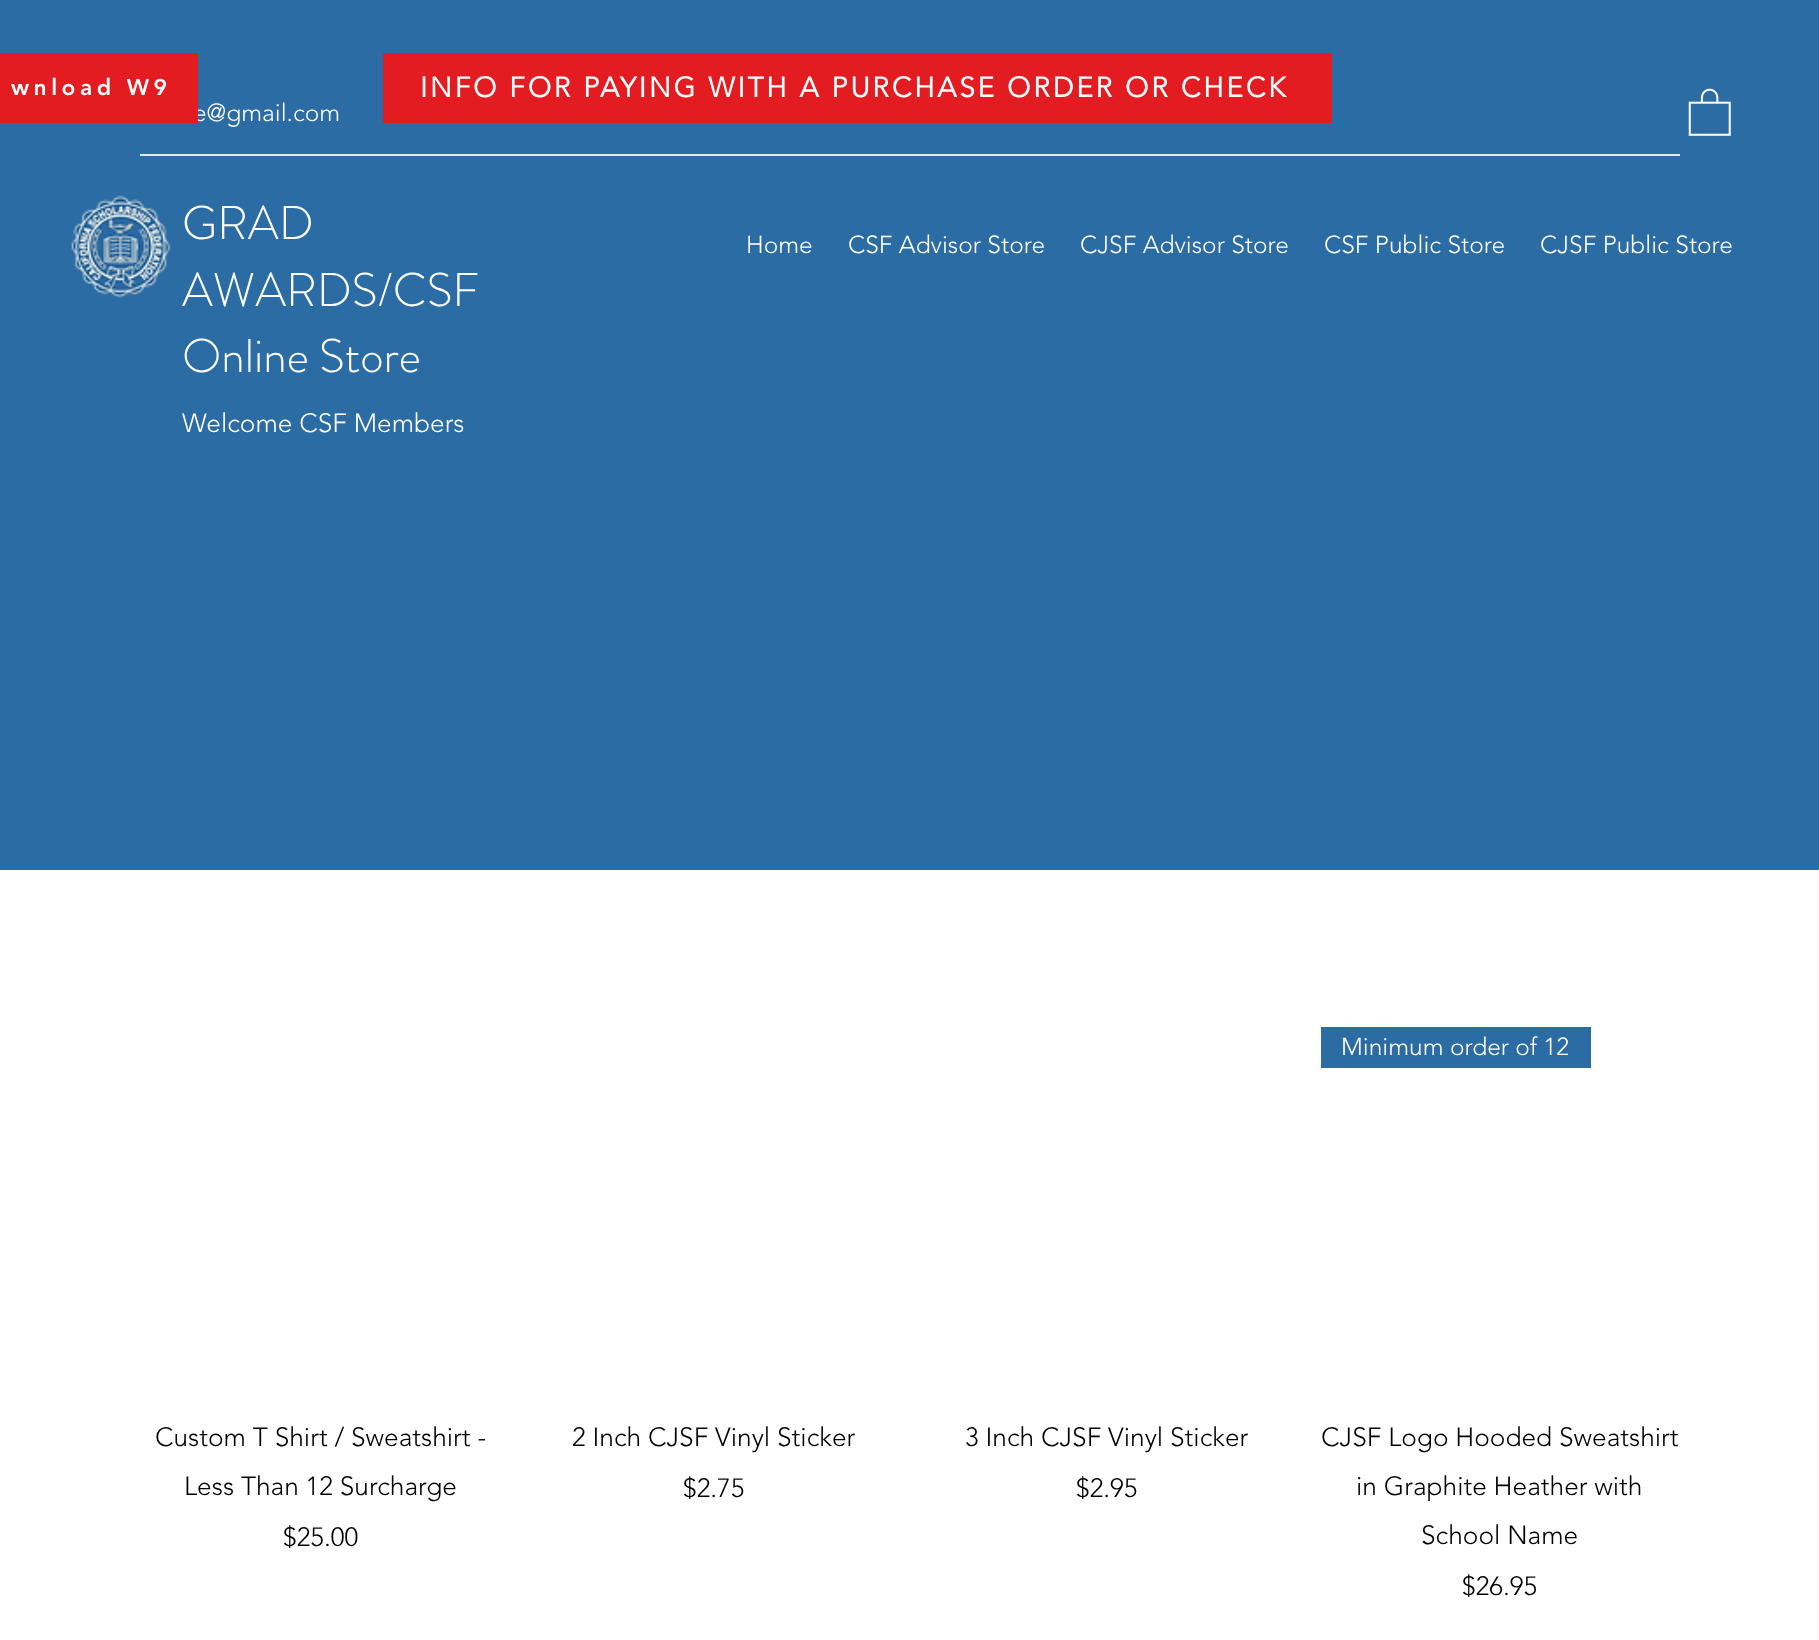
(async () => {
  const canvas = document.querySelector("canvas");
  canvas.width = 1819;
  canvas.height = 1640;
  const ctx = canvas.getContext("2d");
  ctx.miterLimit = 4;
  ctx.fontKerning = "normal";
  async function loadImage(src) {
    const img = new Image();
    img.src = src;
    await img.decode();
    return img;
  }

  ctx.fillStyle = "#ffffff";
  ctx.fillRect(0, 0, 1819, 1640);
  ctx.fillStyle = "#2c6ca4";
  ctx.fillRect(0, 0, 1819, 870);
  ctx.fillStyle = "#e21c21";
  ctx.fillRect(383, 53, 949, 70);
  ctx.drawImage(await loadImage("img/1.png"), 1688, 88, 43, 48);
  ctx.fillStyle = "#dfe9f1";
  ctx.fillRect(140, 154, 1540, 2);
  ctx.drawImage(await loadImage("img/2.png"), 71, 195, 100, 103);
  ctx.fillStyle = "#2c6ca4";
  ctx.fillRect(1321, 1027, 270, 41);
  ctx.letterSpacing = "2.8px";
  ctx.font = "bold 28px 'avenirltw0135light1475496'";
  ctx.fillStyle = "#ffffff";
  ctx.fillText("INFO FOR PAYING WITH A PURCHASE ORDER OR CHECK", 420, 97);
  ctx.letterSpacing = "0px";
  ctx.font = "300 24.5px 'avenirltw0135light1475496'";
  ctx.fillText("e@gmail.com", 193, 121);
  ctx.fillStyle = "#e21c21";
  ctx.fillRect(0, 53, 198, 70);
  ctx.letterSpacing = "4.5px";
  ctx.font = "900 22.75px 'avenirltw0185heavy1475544'";
  ctx.fillStyle = "#ffffff";
  ctx.fillText("wnload W9", 11, 95);
  ctx.letterSpacing = "0px";
  ctx.font = "300 47.25px 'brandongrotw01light'";
  for (const [text, x, y] of [
    ["GRAD", 182, 239],
    ["AWARDS/CSF", 182, 306],
    ["Online Store", 182, 372],
  ]) {
    ctx.fillText(text, x, y);
  }
  ctx.font = "300 26.25px 'avenirltw0135light1475496'";
  ctx.fillText("Welcome CSF Members", 182, 432);
  ctx.font = "300 24.5px 'avenirltw0135light1475496'";
  for (const [text, x, y] of [
    ["Home", 746, 253],
    ["CSF Advisor Store", 848, 253],
    ["CJSF Advisor Store", 1080, 253],
    ["CSF Public Store", 1324, 253],
    ["CJSF Public Store", 1540, 253],
  ]) {
    ctx.fillText(text, x, y);
  }
  ctx.font = "300 26.25px 'avenirltw0135light1475496'";
  ctx.fillStyle = "#000000";
  for (const [text, x, y] of [
    ["Custom T Shirt / Sweatshirt -", 155, 1446],
    ["Less Than 12 Surcharge", 184, 1495],
    ["$25.00", 283, 1546],
    ["2 Inch CJSF Vinyl Sticker", 572, 1446],
    ["$2.75", 683, 1497],
    ["3 Inch CJSF Vinyl Sticker", 965, 1446],
    ["$2.95", 1076, 1497],
  ]) {
    ctx.fillText(text, x, y);
  }
  ctx.font = "300 24.5px 'avenirltw0135light1475496'";
  ctx.fillStyle = "#ffffff";
  ctx.fillText("Minimum order of 12", 1341, 1055);
  ctx.font = "300 26.25px 'avenirltw0135light1475496'";
  ctx.fillStyle = "#000000";
  for (const [text, x, y] of [
    ["CJSF Logo Hooded Sweatshirt", 1321, 1446],
    ["in Graphite Heather with", 1356, 1495],
    ["School Name", 1421, 1544],
    ["$26.95", 1462, 1595],
  ]) {
    ctx.fillText(text, x, y);
  }
})();
